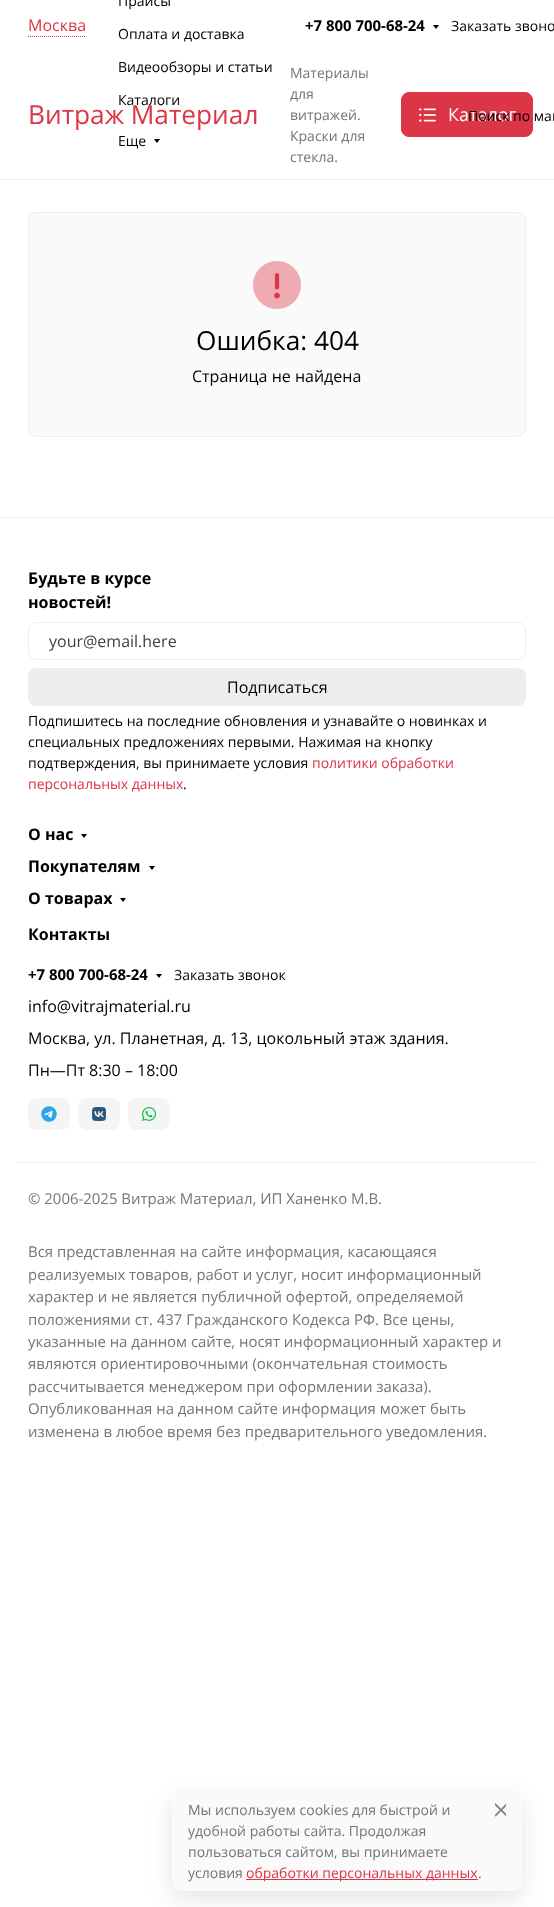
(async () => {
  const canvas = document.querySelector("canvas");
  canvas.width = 554;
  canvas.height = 1907;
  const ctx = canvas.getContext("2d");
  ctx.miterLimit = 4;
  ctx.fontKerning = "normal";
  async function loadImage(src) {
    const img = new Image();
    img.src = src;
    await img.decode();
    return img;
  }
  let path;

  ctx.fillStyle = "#ffffff";
  ctx.fillRect(0, 0, 554, 1907);
  ctx.fillStyle = "#eeeeee";
  ctx.fillRect(0, 179, 554, 1);
  path = new Path2D("M28 36.5H86");
  ctx.strokeStyle = "#dc3545";
  ctx.setLineDash([1, 1]);
  ctx.stroke(path);
  ctx.fillStyle = "#000000";
  path = new Path2D("M154 139H160L157 143Z");
  ctx.fill(path);
  path = new Path2D("M433 25H439L436 29Z");
  ctx.fill(path);
  ctx.fillStyle = "#dc3545";
  ctx.beginPath();
  ctx.roundRect(401.5, 92.5, 131, 44, 7.5);
  ctx.fill();
  ctx.setLineDash([]);
  ctx.stroke();
  ctx.drawImage(await loadImage("img/1.png"), 419, 108, 17, 14);
  ctx.fillStyle = "#fafafa";
  ctx.beginPath();
  ctx.roundRect(28.5, 212.5, 497, 224, 7.5);
  ctx.fill();
  ctx.strokeStyle = "#eeeeee";
  ctx.stroke();
  ctx.drawImage(await loadImage("img/2.png"), 253, 261, 48, 48);
  ctx.fillStyle = "#eeeeee";
  ctx.fillRect(0, 517, 554, 1);
  ctx.beginPath();
  ctx.roundRect(28.5, 622.5, 497, 37, 7.5);
  ctx.stroke();
  ctx.beginPath();
  ctx.roundRect(28.5, 668.5, 497, 37, 7.5);
  ctx.fill();
  ctx.stroke();
  ctx.fillStyle = "#000000";
  path = new Path2D("M81 834H87L84 838Z");
  ctx.fill(path);
  path = new Path2D("M149 866H155L152 870Z");
  ctx.fill(path);
  path = new Path2D("M120 898H126L123 902Z");
  ctx.fill(path);
  path = new Path2D("M156 974H162L159 978Z");
  ctx.fill(path);
  ctx.fillStyle = "#f5f5f5";
  ctx.beginPath();
  ctx.roundRect(28, 1098, 42, 32, 8);
  ctx.fill();
  ctx.drawImage(await loadImage("img/3.png"), 41, 1106, 16, 16);
  ctx.beginPath();
  ctx.roundRect(78, 1098, 42, 32, 8);
  ctx.fill();
  ctx.drawImage(await loadImage("img/4.png"), 92, 1107, 14, 14);
  ctx.beginPath();
  ctx.roundRect(128, 1098, 42, 32, 8);
  ctx.fill();
  ctx.drawImage(await loadImage("img/5.png"), 142, 1107, 14, 14);
  ctx.fillStyle = "#eeeeee";
  ctx.fillRect(16, 1162, 522, 1);
  ctx.fillStyle = "rgba(0, 0, 0, 0.1)";
  ctx.filter = "blur(12px)";
  ctx.beginPath();
  ctx.roundRect(172, 1799, 350, 100, 8);
  ctx.fill();
  ctx.filter = "none";
  ctx.fillStyle = "#fafafa";
  ctx.beginPath();
  ctx.roundRect(172, 1791, 350, 100, 8);
  ctx.fill();
  ctx.fillStyle = "#dc3545";
  ctx.fillRect(246, 1879, 232, 1);
  ctx.drawImage(await loadImage("img/6.png"), 495, 1803, 11, 14);
  ctx.font = "16px Open Sans";
  ctx.fillText("Москва", 28, 31);
  ctx.font = "14px Open Sans";
  ctx.fillStyle = "#000000";
  for (const [text, x, y] of [
    ["Прайсы", 118, 6],
    ["Оплата и доставка", 118, 39],
    ["Видеообзоры и статьи", 118, 72],
    ["Каталоги", 118, 105],
    ["Еще", 118, 146],
  ]) {
    ctx.fillText(text, x, y);
  }
  ctx.font = "bold 14.95px Open Sans";
  ctx.fillText("+7 800 700-68-24", 305, 31);
  ctx.font = "14px Open Sans";
  ctx.fillText("Заказать звоно", 451, 31);
  ctx.save();
  ctx.beginPath();
  ctx.rect(28, 99, 230, 31);
  ctx.clip();
  ctx.font = "26.25px Open Sans";
  ctx.fillStyle = "#dc3545";
  ctx.fillText("Витраж Материал", 28, 124);
  ctx.restore();
  ctx.fillStyle = "#757575";
  for (const [text, x, y] of [
    ["Материалы", 290, 78],
    ["для", 290, 99],
    ["витражей.", 290, 120],
    ["Краски для", 290, 141],
    ["стекла.", 290, 162],
  ]) {
    ctx.fillText(text, x, y);
  }
  ctx.font = "18px Open Sans";
  ctx.fillStyle = "#ffffff";
  ctx.fillText("Каталог", 448, 121);
  ctx.font = "14px Open Sans";
  ctx.fillStyle = "#000000";
  ctx.fillText("Поиск по маг", 468, 121);
  ctx.font = "26.25px Open Sans";
  ctx.fillText("Ошибка: 404", 196, 350);
  ctx.font = "16px Open Sans";
  ctx.fillText("Страница не найдена", 192, 382);
  ctx.font = "bold 16px Open Sans";
  ctx.fillText("Будьте в курсе", 28, 584);
  ctx.fillText("новостей!", 28, 608);
  ctx.font = "16px Open Sans";
  ctx.fillStyle = "#404040";
  ctx.fillText("your@email.here", 49, 647);
  ctx.fillStyle = "#000000";
  ctx.fillText("Подписаться", 227, 693);
  ctx.font = "14px Open Sans";
  for (const [text, x, y] of [
    ["Подпишитесь на последние обновления и узнавайте о новинках и", 28, 726],
    ["специальных предложениях первыми. Нажимая на кнопку", 28, 747],
    ["подтверждения, вы принимаете условия", 28, 768],
  ]) {
    ctx.fillText(text, x, y);
  }
  ctx.fillStyle = "#dc3545";
  ctx.fillText("политики обработки", 312, 768);
  ctx.fillText("персональных данных", 28, 789);
  ctx.fillStyle = "#000000";
  ctx.fillText(".", 183, 789);
  ctx.font = "bold 16px Open Sans";
  for (const [text, x, y] of [
    ["О нас", 28, 840],
    ["Покупателям", 28, 872],
    ["О товарах", 28, 904],
    ["Контакты", 28, 940],
  ]) {
    ctx.fillText(text, x, y);
  }
  ctx.font = "bold 14.95px Open Sans";
  ctx.fillText("+7 800 700-68-24", 28, 980);
  ctx.font = "14px Open Sans";
  ctx.fillText("Заказать звонок", 174, 980);
  ctx.font = "16px Open Sans";
  for (const [text, x, y] of [
    ["info@vitrajmaterial.ru", 28, 1012],
    ["Москва, ул. Планетная, д. 13, цокольный этаж здания.", 28, 1044],
    ["Пн—Пт 8:30 – 18:00", 28, 1076],
  ]) {
    ctx.fillText(text, x, y);
  }
  ctx.font = "14.95px Open Sans";
  ctx.fillStyle = "#757575";
  for (const [text, x, y] of [
    ["© 2006-2025 Витраж Материал, ИП Ханенко М.В.", 28, 1204],
    ["Вся представленная на сайте информация, касающаяся", 28, 1257],
    ["реализуемых товаров, работ и услуг, носит информационный", 28, 1280],
    ["характер и не является публичной офертой, определяемой", 28, 1302],
    ["положениями ст. 437 Гражданского Кодекса РФ. Все цены,", 28, 1325],
    ["указанные на данном сайте, носят информационный характер и", 28, 1347],
    ["являются ориентировочными (окончательная стоимость", 28, 1369],
    ["рассчитывается менеджером при оформлении заказа).", 28, 1392],
    ["Опубликованная на данном сайте информация может быть", 28, 1414],
    ["изменена в любое время без предварительного уведомления.", 28, 1437],
  ]) {
    ctx.fillText(text, x, y);
  }
  ctx.font = "14px Open Sans";
  for (const [text, x, y] of [
    ["Мы используем cookies для быстрой и", 188, 1815],
    ["удобной работы сайта. Продолжая", 188, 1836],
    ["пользоваться сайтом, вы принимаете", 188, 1857],
    ["условия", 188, 1878],
  ]) {
    ctx.fillText(text, x, y);
  }
  ctx.fillStyle = "#dc3545";
  ctx.fillText("обработки персональных данных", 246, 1878);
  ctx.fillStyle = "#757575";
  ctx.fillText(".", 478, 1878);
})();
